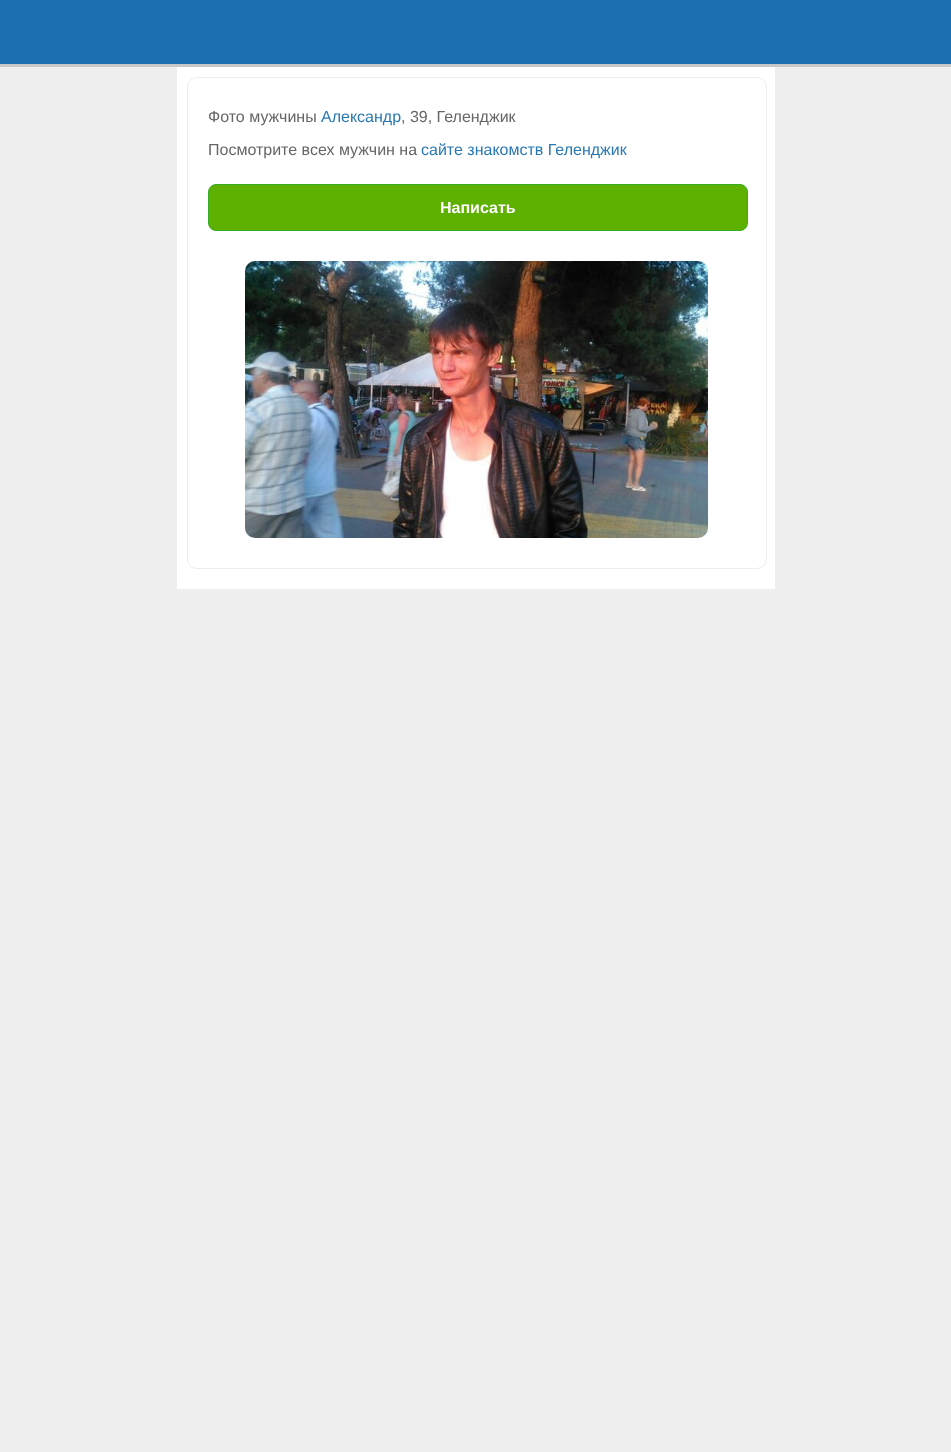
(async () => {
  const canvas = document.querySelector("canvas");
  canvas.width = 951;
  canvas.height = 1452;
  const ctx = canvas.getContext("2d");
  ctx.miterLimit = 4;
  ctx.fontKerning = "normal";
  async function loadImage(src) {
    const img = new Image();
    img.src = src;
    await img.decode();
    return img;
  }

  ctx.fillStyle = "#eeeeee";
  ctx.fillRect(0, 0, 951, 1452);
  for (const [x, y, w, h, color] of [
    [0, 0, 951, 64, "#1c70b1"],
    [0, 64, 951, 3, "#c8c8c8"],
    [177, 67, 598, 522, "#ffffff"],
  ]) {
    ctx.fillStyle = color;
    ctx.fillRect(x, y, w, h);
  }
  ctx.beginPath();
  ctx.roundRect(187.5, 77.5, 579, 491, 9.5);
  ctx.strokeStyle = "#ececec";
  ctx.stroke();
  ctx.fillStyle = "#5eb100";
  ctx.beginPath();
  ctx.roundRect(208.5, 184.5, 539, 46, 7.5);
  ctx.fill();
  ctx.strokeStyle = "#36ac24";
  ctx.stroke();
  ctx.drawImage(await loadImage("img/1.png"), 245, 261, 463, 277);
  ctx.font = "16px Liberation Sans";
  ctx.fillStyle = "#666666";
  ctx.fillText("Фото мужчины", 208, 122);
  ctx.fillStyle = "#2878b4";
  ctx.fillText("Александр", 321, 122);
  ctx.fillStyle = "#666666";
  ctx.fillText(", 39, Геленджик", 401, 122);
  ctx.fillText("Посмотрите всех мужчин на", 208, 155);
  ctx.fillStyle = "#2878b4";
  ctx.fillText("сайте знакомств Геленджик", 421, 155);
  ctx.font = "bold 16px Liberation Sans";
  ctx.fillStyle = "#ffffff";
  ctx.fillText("Написать", 440, 213);
})();
